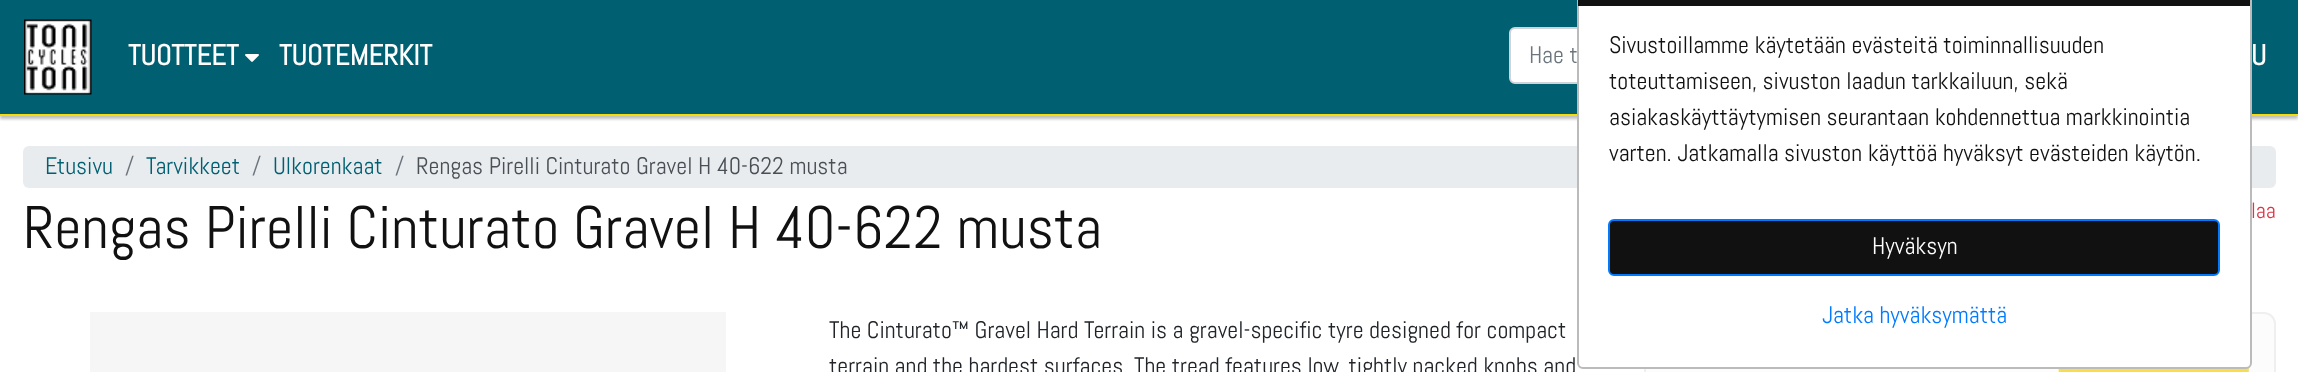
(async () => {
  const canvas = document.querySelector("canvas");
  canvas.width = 2298;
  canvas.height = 372;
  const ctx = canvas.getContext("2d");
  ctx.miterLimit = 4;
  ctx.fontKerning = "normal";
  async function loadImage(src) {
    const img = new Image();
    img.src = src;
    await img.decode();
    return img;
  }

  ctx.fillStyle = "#ffffff";
  ctx.fillRect(0, 0, 2298, 372);
  ctx.fillStyle = "#c0c0c0";
  ctx.filter = "blur(1.5px)";
  ctx.beginPath();
  ctx.rect(0, 3, 2298, 116);
  ctx.fill();
  ctx.filter = "none";
  ctx.fillStyle = "#006072";
  ctx.fillRect(0, 0, 2298, 114);
  ctx.fillStyle = "#f9db09";
  ctx.fillRect(0, 114, 2298, 2);
  ctx.fillStyle = "#ffffff";
  ctx.beginPath();
  ctx.roundRect(1510, 28, 298, 55, 5);
  ctx.fill();
  ctx.strokeStyle = "#ced4da";
  ctx.lineWidth = 2;
  ctx.stroke();
  ctx.fillStyle = "#e9ecef";
  ctx.beginPath();
  ctx.roundRect(23, 146, 2253, 42, 6);
  ctx.fill();
  ctx.fillStyle = "#fcfcfc";
  ctx.beginPath();
  ctx.roundRect(1645, 313, 630, 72, 11);
  ctx.fill();
  ctx.strokeStyle = "#efefef";
  ctx.stroke();
  ctx.drawImage(await loadImage("img/3.png"), 2058, 367, 192, 5);
  ctx.fillStyle = "#ffffff";
  ctx.beginPath();
  ctx.roundRect(1578, -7, 673, 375, 5);
  ctx.fill();
  ctx.strokeStyle = "#bbbbbb";
  ctx.stroke();
  ctx.fillStyle = "#111111";
  ctx.fillRect(1578, 0, 672, 6);
  ctx.beginPath();
  ctx.roundRect(1609, 220, 610, 55, 5);
  ctx.fill();
  ctx.strokeStyle = "#007bff";
  ctx.stroke();
  ctx.drawImage(await loadImage("img/1.png"), 24, 19, 68, 76);
  ctx.drawImage(await loadImage("img/2.png"), 245, 54, 14, 8);
  ctx.fillStyle = "#f6f6f6";
  ctx.fillRect(90, 312, 636, 60);
  ctx.font = "24px Abel";
  ctx.fillStyle = "#111111";
  for (const [text, x, y] of [
    ["Sivustoillamme käytetään evästeitä toiminnallisuuden", 1609, 53],
    ["toteuttamiseen, sivuston laadun tarkkailuun, sekä", 1609, 89],
    ["asiakaskäyttäytymisen seurantaan kohdennettua markkinointia", 1609, 125],
    ["varten. Jatkamalla sivuston käyttöä hyväksyt evästeiden käytön.", 1609, 161],
  ]) {
    ctx.fillText(text, x, y);
  }
  ctx.fillStyle = "#ffffff";
  ctx.fillText("Hyväksyn", 1872, 254);
  ctx.fillStyle = "#007bff";
  ctx.fillText("Jatka hyväksymättä", 1822, 323);
  ctx.font = "bold 28.75px Abel";
  ctx.fillStyle = "#ffffff";
  ctx.fillText("TUOTTEET", 128, 65);
  ctx.fillText("TUOTEMERKIT", 279, 65);
  ctx.font = "24px Abel";
  ctx.fillStyle = "#6c757d";
  ctx.fillText("Hae t", 1529, 63);
  ctx.font = "bold 28.75px Abel";
  ctx.fillStyle = "#ffffff";
  ctx.fillText("U", 2251, 65);
  ctx.font = "24px Abel";
  ctx.fillStyle = "#006072";
  ctx.fillText("Etusivu", 45, 174);
  ctx.fillStyle = "#6c757d";
  ctx.fillText("/", 125, 174);
  ctx.fillStyle = "#006072";
  ctx.fillText("Tarvikkeet", 146, 174);
  ctx.fillStyle = "#6c757d";
  ctx.fillText("/", 252, 174);
  ctx.fillStyle = "#006072";
  ctx.fillText("Ulkorenkaat", 273, 174);
  ctx.fillStyle = "#6c757d";
  ctx.fillText("/", 395, 174);
  ctx.fillStyle = "#494f54";
  ctx.fillText("Rengas Pirelli Cinturato Gravel H 40-622 musta", 416, 174);
  ctx.font = "60px Abel";
  ctx.fillStyle = "#111111";
  ctx.fillText("Rengas Pirelli Cinturato Gravel H 40-622 musta", 23, 248);
  ctx.font = "22px Abel";
  ctx.fillStyle = "#dc3545";
  ctx.fillText("laa", 2251, 218);
  ctx.font = "24px Abel";
  ctx.fillStyle = "#212529";
  ctx.fillText("The Cinturato™ Gravel Hard Terrain is a gravel-specific tyre designed for compact", 829, 338);
  ctx.fillText("terrain and the hardest surfaces. The tread features low, tightly packed knobs and", 829, 374);
})();
